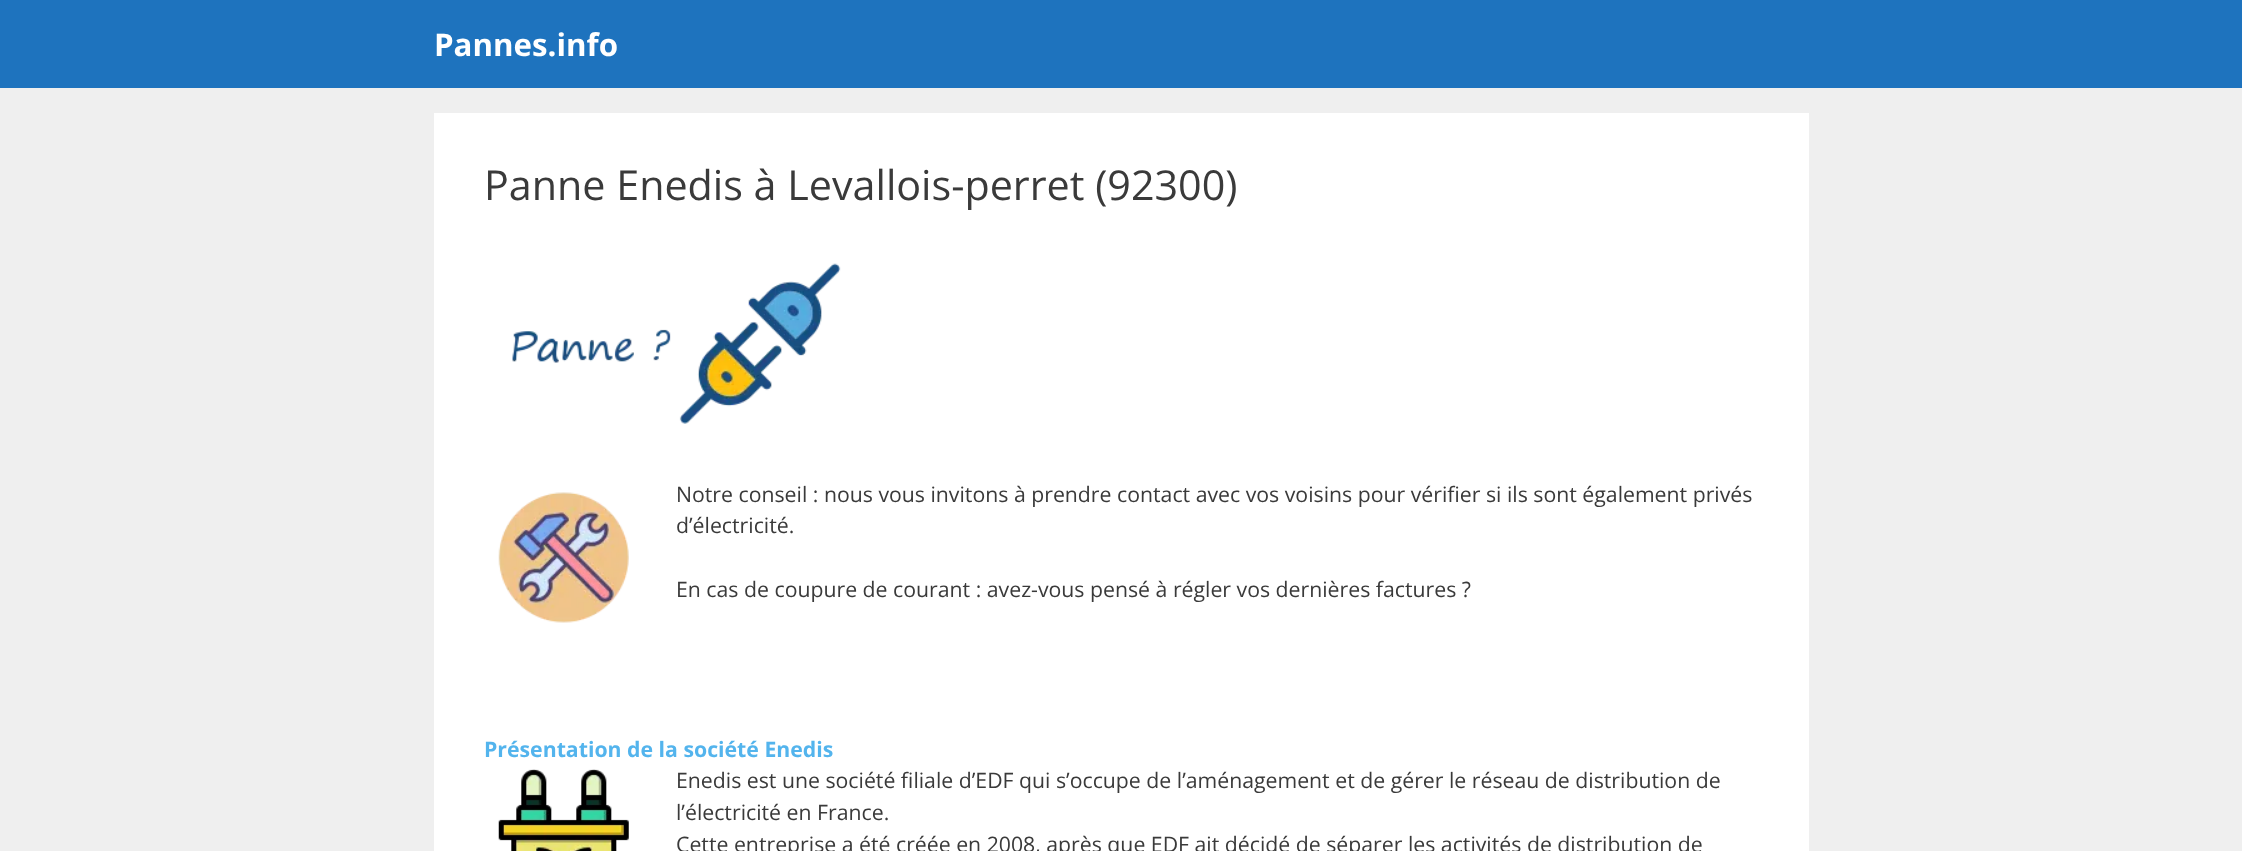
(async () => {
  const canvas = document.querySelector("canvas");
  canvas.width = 2242;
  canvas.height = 851;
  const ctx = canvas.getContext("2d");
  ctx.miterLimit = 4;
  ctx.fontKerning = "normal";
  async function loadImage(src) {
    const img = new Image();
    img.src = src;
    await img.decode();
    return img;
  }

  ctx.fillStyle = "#efefef";
  ctx.fillRect(0, 0, 2242, 851);
  ctx.fillStyle = "#1e73be";
  ctx.fillRect(0, 0, 2242, 88);
  ctx.fillStyle = "#ffffff";
  ctx.fillRect(434, 113, 1375, 738);
  ctx.drawImage(await loadImage("img/1.png"), 512, 263, 329, 161);
  ctx.drawImage(await loadImage("img/2.png"), 498, 492, 131, 131);
  ctx.drawImage(await loadImage("img/3.png"), 498, 769, 131, 82);
  ctx.font = "bold 31.25px Open Sans";
  ctx.fillText("Pannes.info", 434, 56);
  ctx.font = "41.25px Open Sans";
  ctx.fillStyle = "#3a3a3a";
  ctx.fillText("Panne Enedis à Levallois-perret (92300)", 484, 200);
  ctx.font = "21.25px Open Sans";
  for (const [text, x, y] of [
    ["Notre conseil : nous vous invitons à prendre contact avec vos voisins pour vérifier si ils sont également privés", 676, 502],
    ["d’électricité.", 676, 533],
    ["En cas de coupure de courant : avez-vous pensé à régler vos dernières factures ?", 676, 597],
  ]) {
    ctx.fillText(text, x, y);
  }
  ctx.font = "bold 21.25px Open Sans";
  ctx.fillStyle = "#53b4ed";
  ctx.fillText("Présentation de la société Enedis", 484, 757);
  ctx.font = "21.25px Open Sans";
  ctx.fillStyle = "#3a3a3a";
  for (const [text, x, y] of [
    ["Enedis est une société filiale d’EDF qui s’occupe de l’aménagement et de gérer le réseau de distribution de", 676, 788],
    ["l’électricité en France.", 676, 820],
    ["Cette entreprise a été créée en 2008, après que EDF ait décidé de séparer les activités de distribution de", 676, 852],
  ]) {
    ctx.fillText(text, x, y);
  }
})();
